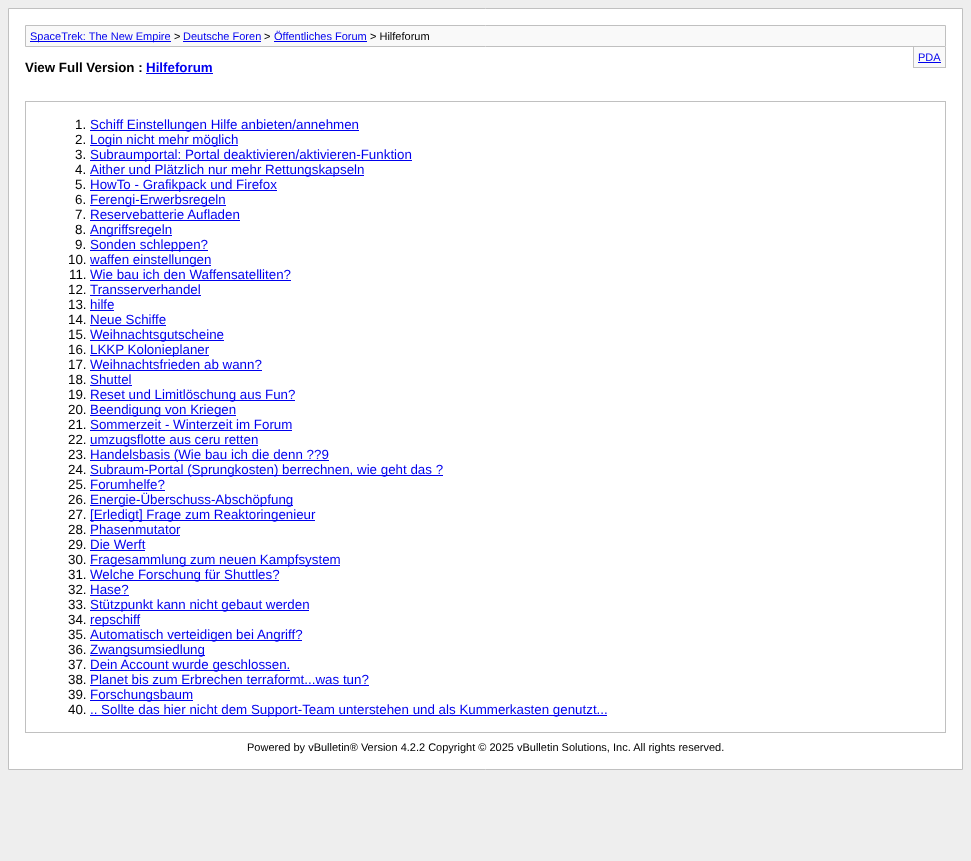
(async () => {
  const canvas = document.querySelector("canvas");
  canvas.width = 971;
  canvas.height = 861;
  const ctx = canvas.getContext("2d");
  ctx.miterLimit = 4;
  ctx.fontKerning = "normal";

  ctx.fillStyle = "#eeeeee";
  ctx.fillRect(0, 0, 971, 861);
  ctx.fillStyle = "#ffffff";
  ctx.beginPath();
  ctx.rect(8.5, 8.5, 954, 761);
  ctx.fill();
  ctx.strokeStyle = "#c0c0c0";
  ctx.stroke();
  ctx.fillStyle = "#f9f9f9";
  ctx.beginPath();
  ctx.rect(25.5, 25.5, 920, 21);
  ctx.fill();
  ctx.stroke();
  for (const [x, y, w, h, color] of [
    [30, 41, 141, 1, "#0000ee"],
    [183, 41, 78, 1, "#0000ee"],
    [274, 41, 93, 1, "#0000ee"],
    [914, 47, 31, 20, "#f9f9f9"],
    [945, 47, 1, 21, "#c0c0c0"],
    [913, 67, 33, 1, "#c0c0c0"],
    [913, 47, 1, 21, "#c0c0c0"],
    [918, 62, 23, 1, "#0000ee"],
    [146, 73, 67, 1, "#0000ee"],
  ]) {
    ctx.fillStyle = color;
    ctx.fillRect(x, y, w, h);
  }
  ctx.strokeRect(25.5, 101.5, 920, 631);
  for (const [x, y, w, h, color] of [
    [90, 130, 269, 1, "#0000ee"],
    [90, 145, 148, 1, "#0000ee"],
    [90, 160, 322, 1, "#0000ee"],
    [90, 175, 274, 1, "#0000ee"],
    [90, 190, 187, 1, "#0000ee"],
    [90, 205, 136, 1, "#0000ee"],
    [90, 220, 150, 1, "#0000ee"],
    [90, 235, 82, 1, "#0000ee"],
    [90, 250, 118, 1, "#0000ee"],
    [90, 265, 121, 1, "#0000ee"],
    [90, 280, 201, 1, "#0000ee"],
    [90, 295, 111, 1, "#0000ee"],
    [90, 310, 24, 1, "#0000ee"],
    [90, 325, 76, 1, "#0000ee"],
    [90, 340, 134, 1, "#0000ee"],
    [90, 355, 119, 1, "#0000ee"],
    [90, 370, 172, 1, "#0000ee"],
    [90, 385, 42, 1, "#0000ee"],
    [90, 400, 205, 1, "#0000ee"],
    [90, 415, 146, 1, "#0000ee"],
    [90, 430, 202, 1, "#0000ee"],
    [90, 445, 168, 1, "#0000ee"],
    [90, 460, 239, 1, "#0000ee"],
    [90, 475, 353, 1, "#0000ee"],
    [90, 490, 75, 1, "#0000ee"],
    [90, 505, 203, 1, "#0000ee"],
    [90, 520, 225, 1, "#0000ee"],
    [90, 535, 90, 1, "#0000ee"],
    [90, 550, 55, 1, "#0000ee"],
    [90, 565, 250, 1, "#0000ee"],
    [90, 580, 189, 1, "#0000ee"],
    [90, 595, 39, 1, "#0000ee"],
    [90, 610, 219, 1, "#0000ee"],
    [90, 625, 50, 1, "#0000ee"],
    [90, 640, 212, 1, "#0000ee"],
    [90, 655, 115, 1, "#0000ee"],
    [90, 670, 200, 1, "#0000ee"],
    [90, 685, 279, 1, "#0000ee"],
    [90, 700, 103, 1, "#0000ee"],
    [90, 715, 517, 1, "#0000ee"],
  ]) {
    ctx.fillStyle = color;
    ctx.fillRect(x, y, w, h);
  }
  ctx.font = "11px Liberation Sans";
  ctx.fillText("SpaceTrek: The New Empire", 30, 40);
  ctx.fillStyle = "#000000";
  ctx.fillText(">", 174, 40);
  ctx.fillStyle = "#0000ee";
  ctx.fillText("Deutsche Foren", 183, 40);
  ctx.fillStyle = "#000000";
  ctx.fillText(">", 264, 40);
  ctx.fillStyle = "#0000ee";
  ctx.fillText("Öffentliches Forum", 274, 40);
  ctx.fillStyle = "#000000";
  ctx.fillText("> Hilfeforum", 370, 40);
  ctx.fillStyle = "#0000ee";
  ctx.fillText("PDA", 918, 61);
  ctx.font = "bold 13.35px Liberation Sans";
  ctx.fillStyle = "#000000";
  ctx.fillText("View Full Version :", 25, 72);
  ctx.fillStyle = "#0000ee";
  ctx.fillText("Hilfeforum", 146, 72);
  ctx.font = "13.35px Liberation Sans";
  ctx.fillStyle = "#000000";
  ctx.fillText("1.", 75, 129);
  ctx.fillStyle = "#0000ee";
  ctx.fillText("Schiff Einstellungen Hilfe anbieten/annehmen", 90, 129);
  ctx.fillStyle = "#000000";
  ctx.fillText("2.", 75, 144);
  ctx.fillStyle = "#0000ee";
  ctx.fillText("Login nicht mehr möglich", 90, 144);
  ctx.fillStyle = "#000000";
  ctx.fillText("3.", 75, 159);
  ctx.fillStyle = "#0000ee";
  ctx.fillText("Subraumportal: Portal deaktivieren/aktivieren-Funktion", 90, 159);
  ctx.fillStyle = "#000000";
  ctx.fillText("4.", 75, 174);
  ctx.fillStyle = "#0000ee";
  ctx.fillText("Aither und Plätzlich nur mehr Rettungskapseln", 90, 174);
  ctx.fillStyle = "#000000";
  ctx.fillText("5.", 75, 189);
  ctx.fillStyle = "#0000ee";
  ctx.fillText("HowTo - Grafikpack und Firefox", 90, 189);
  ctx.fillStyle = "#000000";
  ctx.fillText("6.", 75, 204);
  ctx.fillStyle = "#0000ee";
  ctx.fillText("Ferengi-Erwerbsregeln", 90, 204);
  ctx.fillStyle = "#000000";
  ctx.fillText("7.", 75, 219);
  ctx.fillStyle = "#0000ee";
  ctx.fillText("Reservebatterie Aufladen", 90, 219);
  ctx.fillStyle = "#000000";
  ctx.fillText("8.", 75, 234);
  ctx.fillStyle = "#0000ee";
  ctx.fillText("Angriffsregeln", 90, 234);
  ctx.fillStyle = "#000000";
  ctx.fillText("9.", 75, 249);
  ctx.fillStyle = "#0000ee";
  ctx.fillText("Sonden schleppen?", 90, 249);
  ctx.fillStyle = "#000000";
  ctx.fillText("10.", 68, 264);
  ctx.fillStyle = "#0000ee";
  ctx.fillText("waffen einstellungen", 90, 264);
  ctx.fillStyle = "#000000";
  ctx.fillText("11.", 69, 279);
  ctx.fillStyle = "#0000ee";
  ctx.fillText("Wie bau ich den Waffensatelliten?", 90, 279);
  ctx.fillStyle = "#000000";
  ctx.fillText("12.", 68, 294);
  ctx.fillStyle = "#0000ee";
  ctx.fillText("Transserverhandel", 90, 294);
  ctx.fillStyle = "#000000";
  ctx.fillText("13.", 68, 309);
  ctx.fillStyle = "#0000ee";
  ctx.fillText("hilfe", 90, 309);
  ctx.fillStyle = "#000000";
  ctx.fillText("14.", 68, 324);
  ctx.fillStyle = "#0000ee";
  ctx.fillText("Neue Schiffe", 90, 324);
  ctx.fillStyle = "#000000";
  ctx.fillText("15.", 68, 339);
  ctx.fillStyle = "#0000ee";
  ctx.fillText("Weihnachtsgutscheine", 90, 339);
  ctx.fillStyle = "#000000";
  ctx.fillText("16.", 68, 354);
  ctx.fillStyle = "#0000ee";
  ctx.fillText("LKKP Kolonieplaner", 90, 354);
  ctx.fillStyle = "#000000";
  ctx.fillText("17.", 68, 369);
  ctx.fillStyle = "#0000ee";
  ctx.fillText("Weihnachtsfrieden ab wann?", 90, 369);
  ctx.fillStyle = "#000000";
  ctx.fillText("18.", 68, 384);
  ctx.fillStyle = "#0000ee";
  ctx.fillText("Shuttel", 90, 384);
  ctx.fillStyle = "#000000";
  ctx.fillText("19.", 68, 399);
  ctx.fillStyle = "#0000ee";
  ctx.fillText("Reset und Limitlöschung aus Fun?", 90, 399);
  ctx.fillStyle = "#000000";
  ctx.fillText("20.", 68, 414);
  ctx.fillStyle = "#0000ee";
  ctx.fillText("Beendigung von Kriegen", 90, 414);
  ctx.fillStyle = "#000000";
  ctx.fillText("21.", 68, 429);
  ctx.fillStyle = "#0000ee";
  ctx.fillText("Sommerzeit - Winterzeit im Forum", 90, 429);
  ctx.fillStyle = "#000000";
  ctx.fillText("22.", 68, 444);
  ctx.fillStyle = "#0000ee";
  ctx.fillText("umzugsflotte aus ceru retten", 90, 444);
  ctx.fillStyle = "#000000";
  ctx.fillText("23.", 68, 459);
  ctx.fillStyle = "#0000ee";
  ctx.fillText("Handelsbasis (Wie bau ich die denn ??9", 90, 459);
  ctx.fillStyle = "#000000";
  ctx.fillText("24.", 68, 474);
  ctx.fillStyle = "#0000ee";
  ctx.fillText("Subraum-Portal (Sprungkosten) berrechnen, wie geht das ?", 90, 474);
  ctx.fillStyle = "#000000";
  ctx.fillText("25.", 68, 489);
  ctx.fillStyle = "#0000ee";
  ctx.fillText("Forumhelfe?", 90, 489);
  ctx.fillStyle = "#000000";
  ctx.fillText("26.", 68, 504);
  ctx.fillStyle = "#0000ee";
  ctx.fillText("Energie-Überschuss-Abschöpfung", 90, 504);
  ctx.fillStyle = "#000000";
  ctx.fillText("27.", 68, 519);
  ctx.fillStyle = "#0000ee";
  ctx.fillText("[Erledigt] Frage zum Reaktoringenieur", 90, 519);
  ctx.fillStyle = "#000000";
  ctx.fillText("28.", 68, 534);
  ctx.fillStyle = "#0000ee";
  ctx.fillText("Phasenmutator", 90, 534);
  ctx.fillStyle = "#000000";
  ctx.fillText("29.", 68, 549);
  ctx.fillStyle = "#0000ee";
  ctx.fillText("Die Werft", 90, 549);
  ctx.fillStyle = "#000000";
  ctx.fillText("30.", 68, 564);
  ctx.fillStyle = "#0000ee";
  ctx.fillText("Fragesammlung zum neuen Kampfsystem", 90, 564);
  ctx.fillStyle = "#000000";
  ctx.fillText("31.", 68, 579);
  ctx.fillStyle = "#0000ee";
  ctx.fillText("Welche Forschung für Shuttles?", 90, 579);
  ctx.fillStyle = "#000000";
  ctx.fillText("32.", 68, 594);
  ctx.fillStyle = "#0000ee";
  ctx.fillText("Hase?", 90, 594);
  ctx.fillStyle = "#000000";
  ctx.fillText("33.", 68, 609);
  ctx.fillStyle = "#0000ee";
  ctx.fillText("Stützpunkt kann nicht gebaut werden", 90, 609);
  ctx.fillStyle = "#000000";
  ctx.fillText("34.", 68, 624);
  ctx.fillStyle = "#0000ee";
  ctx.fillText("repschiff", 90, 624);
  ctx.fillStyle = "#000000";
  ctx.fillText("35.", 68, 639);
  ctx.fillStyle = "#0000ee";
  ctx.fillText("Automatisch verteidigen bei Angriff?", 90, 639);
  ctx.fillStyle = "#000000";
  ctx.fillText("36.", 68, 654);
  ctx.fillStyle = "#0000ee";
  ctx.fillText("Zwangsumsiedlung", 90, 654);
  ctx.fillStyle = "#000000";
  ctx.fillText("37.", 68, 669);
  ctx.fillStyle = "#0000ee";
  ctx.fillText("Dein Account wurde geschlossen.", 90, 669);
  ctx.fillStyle = "#000000";
  ctx.fillText("38.", 68, 684);
  ctx.fillStyle = "#0000ee";
  ctx.fillText("Planet bis zum Erbrechen terraformt...was tun?", 90, 684);
  ctx.fillStyle = "#000000";
  ctx.fillText("39.", 68, 699);
  ctx.fillStyle = "#0000ee";
  ctx.fillText("Forschungsbaum", 90, 699);
  ctx.fillStyle = "#000000";
  ctx.fillText("40.", 68, 714);
  ctx.fillStyle = "#0000ee";
  ctx.fillText(".. Sollte das hier nicht dem Support-Team unterstehen und als Kummerkasten genutzt...", 90, 714);
  ctx.font = "11px Liberation Sans";
  ctx.fillStyle = "#000000";
  ctx.fillText("Powered by vBulletin® Version 4.2.2 Copyright © 2025 vBulletin Solutions, Inc. All rights reserved.", 247, 751);
})();
